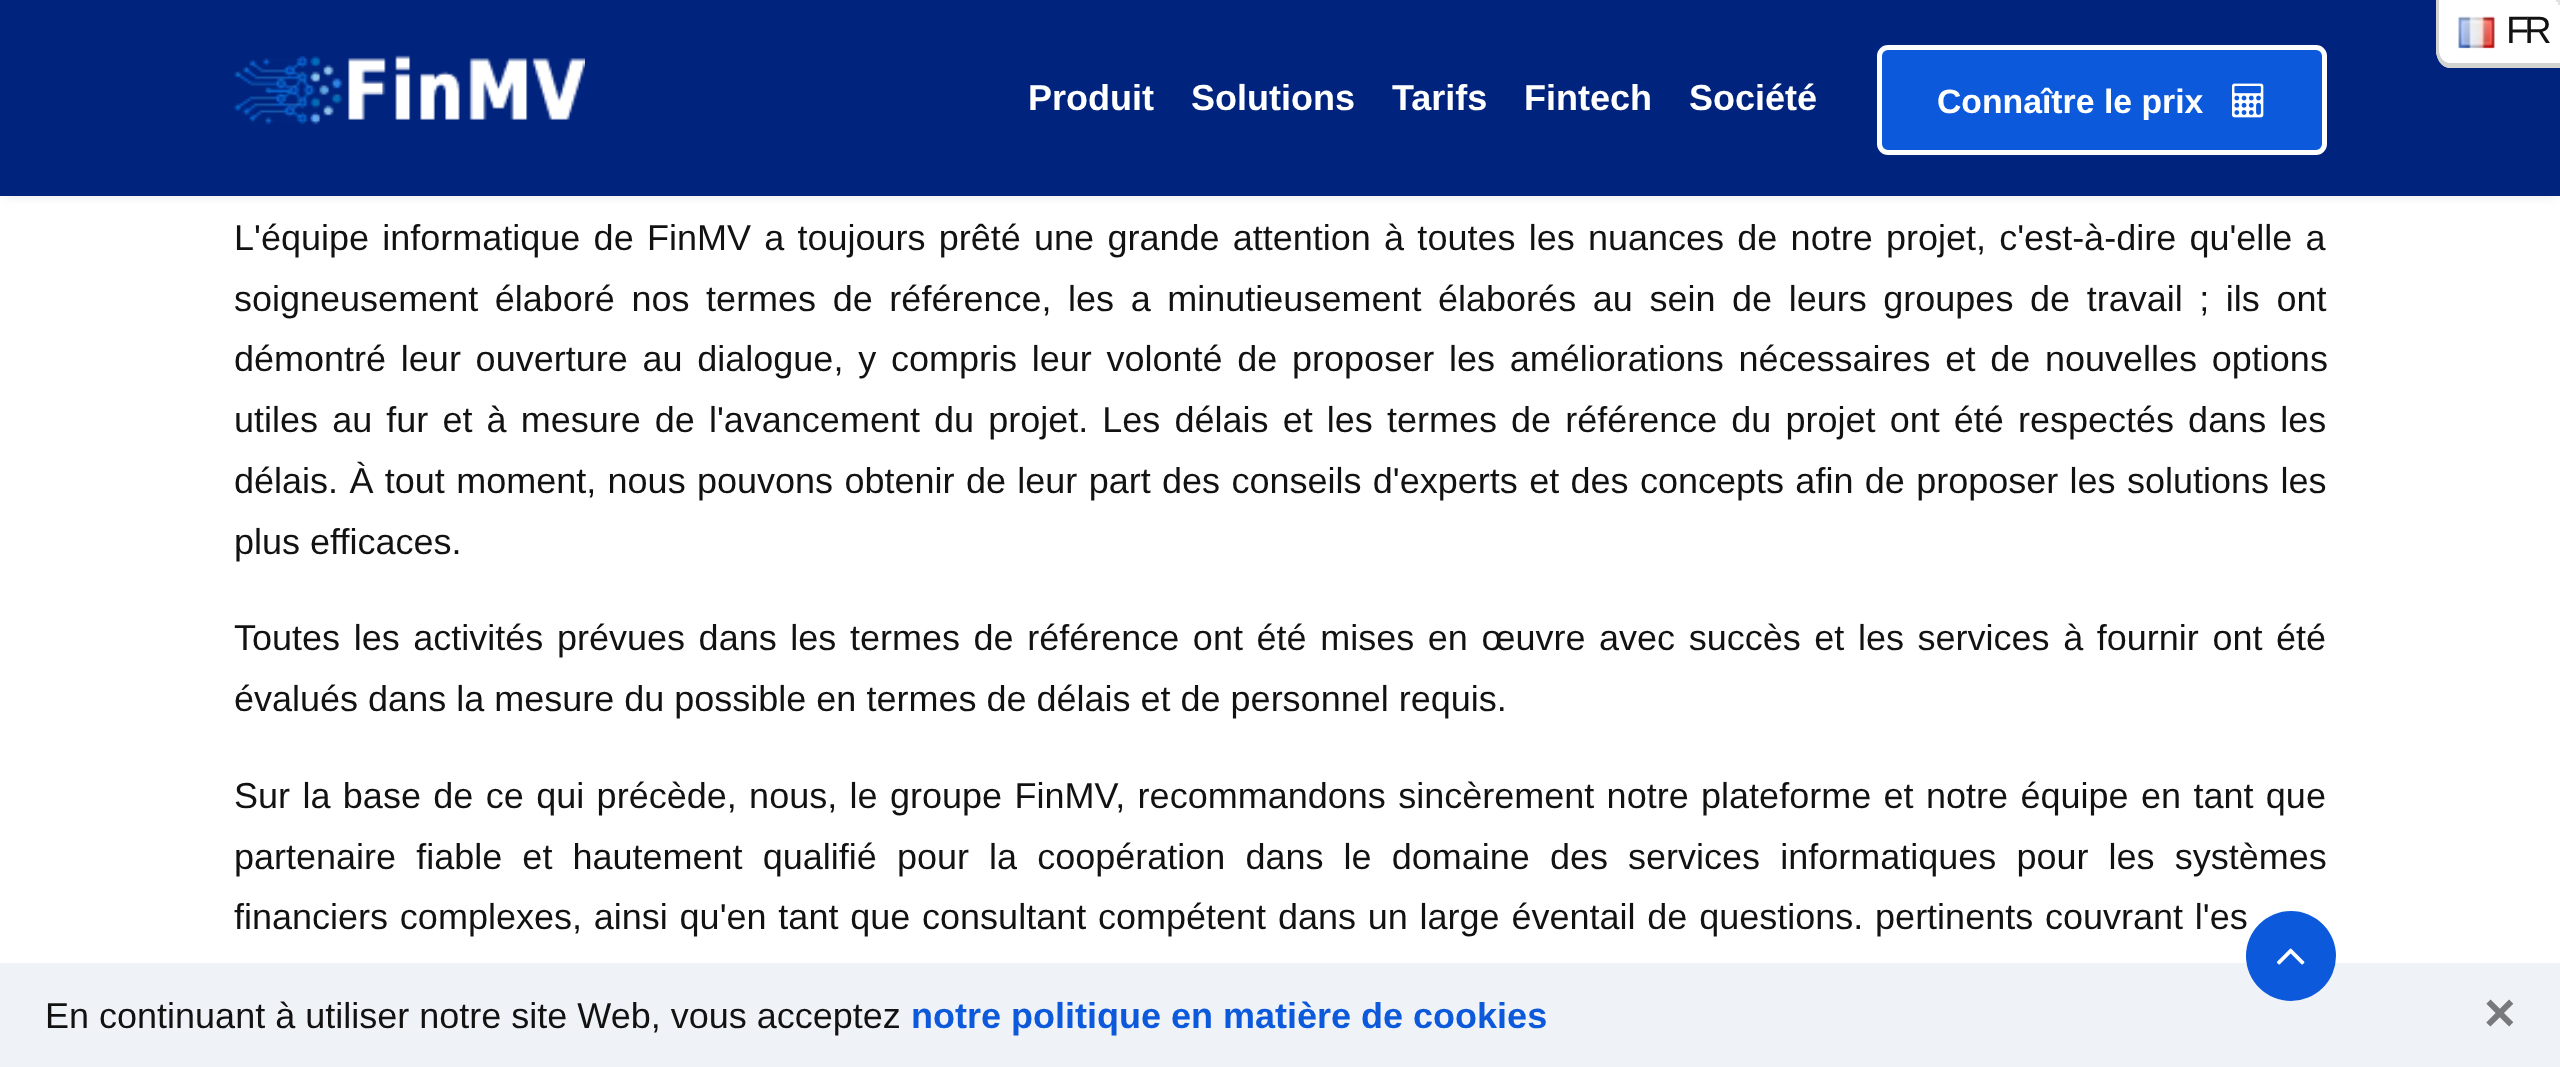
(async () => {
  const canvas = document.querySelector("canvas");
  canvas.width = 2560;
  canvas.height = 1067;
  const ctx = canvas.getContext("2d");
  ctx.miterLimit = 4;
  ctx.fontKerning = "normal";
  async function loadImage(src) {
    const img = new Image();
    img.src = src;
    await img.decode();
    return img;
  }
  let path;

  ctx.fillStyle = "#ffffff";
  ctx.fillRect(0, 0, 2560, 1067);
  ctx.fillStyle = "rgba(0, 0, 0, 0.1)";
  ctx.filter = "blur(5.5px)";
  ctx.beginPath();
  ctx.rect(5, 9, 2551, 187);
  ctx.fill();
  ctx.filter = "none";
  ctx.fillStyle = "#00247e";
  ctx.fillRect(0, 0, 2560, 196);
  ctx.fillStyle = "#ffffff";
  path = new Path2D("M2436 0H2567V68H2450C2442 68 2436 59 2436 50Z");
  ctx.fill(path);
  ctx.fillStyle = "#d3d4d2";
  path = new Path2D("M2436 0H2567V68H2450C2442 68 2436 59 2436 50ZM2439 0H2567V63H2450C2444 63 2439 57 2439 50Z");
  ctx.fill(path, "evenodd");
  ctx.fillStyle = "#e0e2e7";
  ctx.fillRect(2558, 0, 2, 5);
  ctx.fillRect(2556, 0, 4, 2);
  ctx.drawImage(await loadImage("img/1.png"), 2458, 16, 37, 33);
  ctx.drawImage(await loadImage("img/2.png"), 234, 55, 351, 70);
  ctx.fillStyle = "#0c5adb";
  ctx.beginPath();
  ctx.roundRect(1879.5, 47.5, 445, 105, 8.5);
  ctx.fill();
  ctx.strokeStyle = "#ffffff";
  ctx.lineWidth = 5;
  ctx.stroke();
  ctx.drawImage(await loadImage("img/3.png"), 2232, 83, 32, 35);
  ctx.fillStyle = "#eff2f7";
  ctx.fillRect(0, 963, 2560, 104);
  ctx.letterSpacing = "-5px";
  ctx.font = "38px Liberation Sans";
  ctx.fillStyle = "#121212";
  ctx.fillText("FR", 2506, 43);
  ctx.letterSpacing = "0px";
  ctx.font = "bold 36px Liberation Sans";
  ctx.fillStyle = "#ffffff";
  for (const [text, x, y] of [
    ["Produit", 1028, 110],
    ["Solutions", 1191, 110],
    ["Tarifs", 1392, 110],
    ["Fintech", 1524, 110],
    ["Société", 1689, 110],
  ]) {
    ctx.fillText(text, x, y);
  }
  ctx.font = "bold 33.75px Liberation Sans";
  ctx.fillText("Connaître le prix", 1937, 113);
  ctx.wordSpacing = "3.25px";
  ctx.font = "36px Liberation Sans";
  ctx.fillStyle = "#121212";
  ctx.fillText("L'équipe informatique de FinMV a toujours prêté une grande attention à toutes les nuances de notre projet, c'est-à-dire qu'elle a", 234, 250);
  ctx.wordSpacing = "6.6px";
  ctx.fillText("soigneusement élaboré nos termes de référence, les a minutieusement élaborés au sein de leurs groupes de travail ; ils ont", 234, 311);
  ctx.wordSpacing = "4.75px";
  ctx.fillText("démontré leur ouverture au dialogue, y compris leur volonté de proposer les améliorations nécessaires et de nouvelles options", 234, 371);
  ctx.wordSpacing = "4.1px";
  ctx.fillText("utiles au fur et à mesure de l'avancement du projet. Les délais et les termes de référence du projet ont été respectés dans les", 234, 432);
  ctx.wordSpacing = "1.35px";
  ctx.fillText("délais. À tout moment, nous pouvons obtenir de leur part des conseils d'experts et des concepts afin de proposer les solutions les", 234, 493);
  ctx.wordSpacing = "0px";
  ctx.fillText("plus efficaces.", 234, 554);
  ctx.wordSpacing = "3.6px";
  ctx.fillText("Toutes les activités prévues dans les termes de référence ont été mises en œuvre avec succès et les services à fournir ont été", 234, 650);
  ctx.wordSpacing = "0px";
  ctx.fillText("évalués dans la mesure du possible en termes de délais et de personnel requis.", 234, 711);
  ctx.wordSpacing = "2.4px";
  ctx.fillText("Sur la base de ce qui précède, nous, le groupe FinMV, recommandons sincèrement notre plateforme et notre équipe en tant que", 234, 808);
  ctx.wordSpacing = "10.1px";
  ctx.fillText("partenaire fiable et hautement qualifié pour la coopération dans le domaine des services informatiques pour les systèmes", 234, 869);
  ctx.wordSpacing = "1.8px";
  ctx.fillText("financiers complexes, ainsi qu'en tant que consultant compétent dans un large éventail de questions. pertinents couvrant l'es", 234, 929);
  ctx.fillStyle = "#0c5adb";
  ctx.beginPath();
  ctx.arc(2291, 956, 45, 0, Math.PI * 2);
  ctx.fill();
  ctx.drawImage(await loadImage("img/4.png"), 2276, 948, 29, 17);
  ctx.wordSpacing = "0px";
  ctx.fillStyle = "#121212";
  ctx.fillText("En continuant à utiliser notre site Web, vous acceptez", 45, 1028);
  ctx.font = "bold 36px Liberation Sans";
  ctx.fillStyle = "#0c5adb";
  ctx.fillText("notre politique en matière de cookies", 911, 1028);
  ctx.font = "bold 54px Liberation Sans";
  ctx.fillStyle = "#78797c";
  ctx.fillText("×", 2484, 1031);
})();
